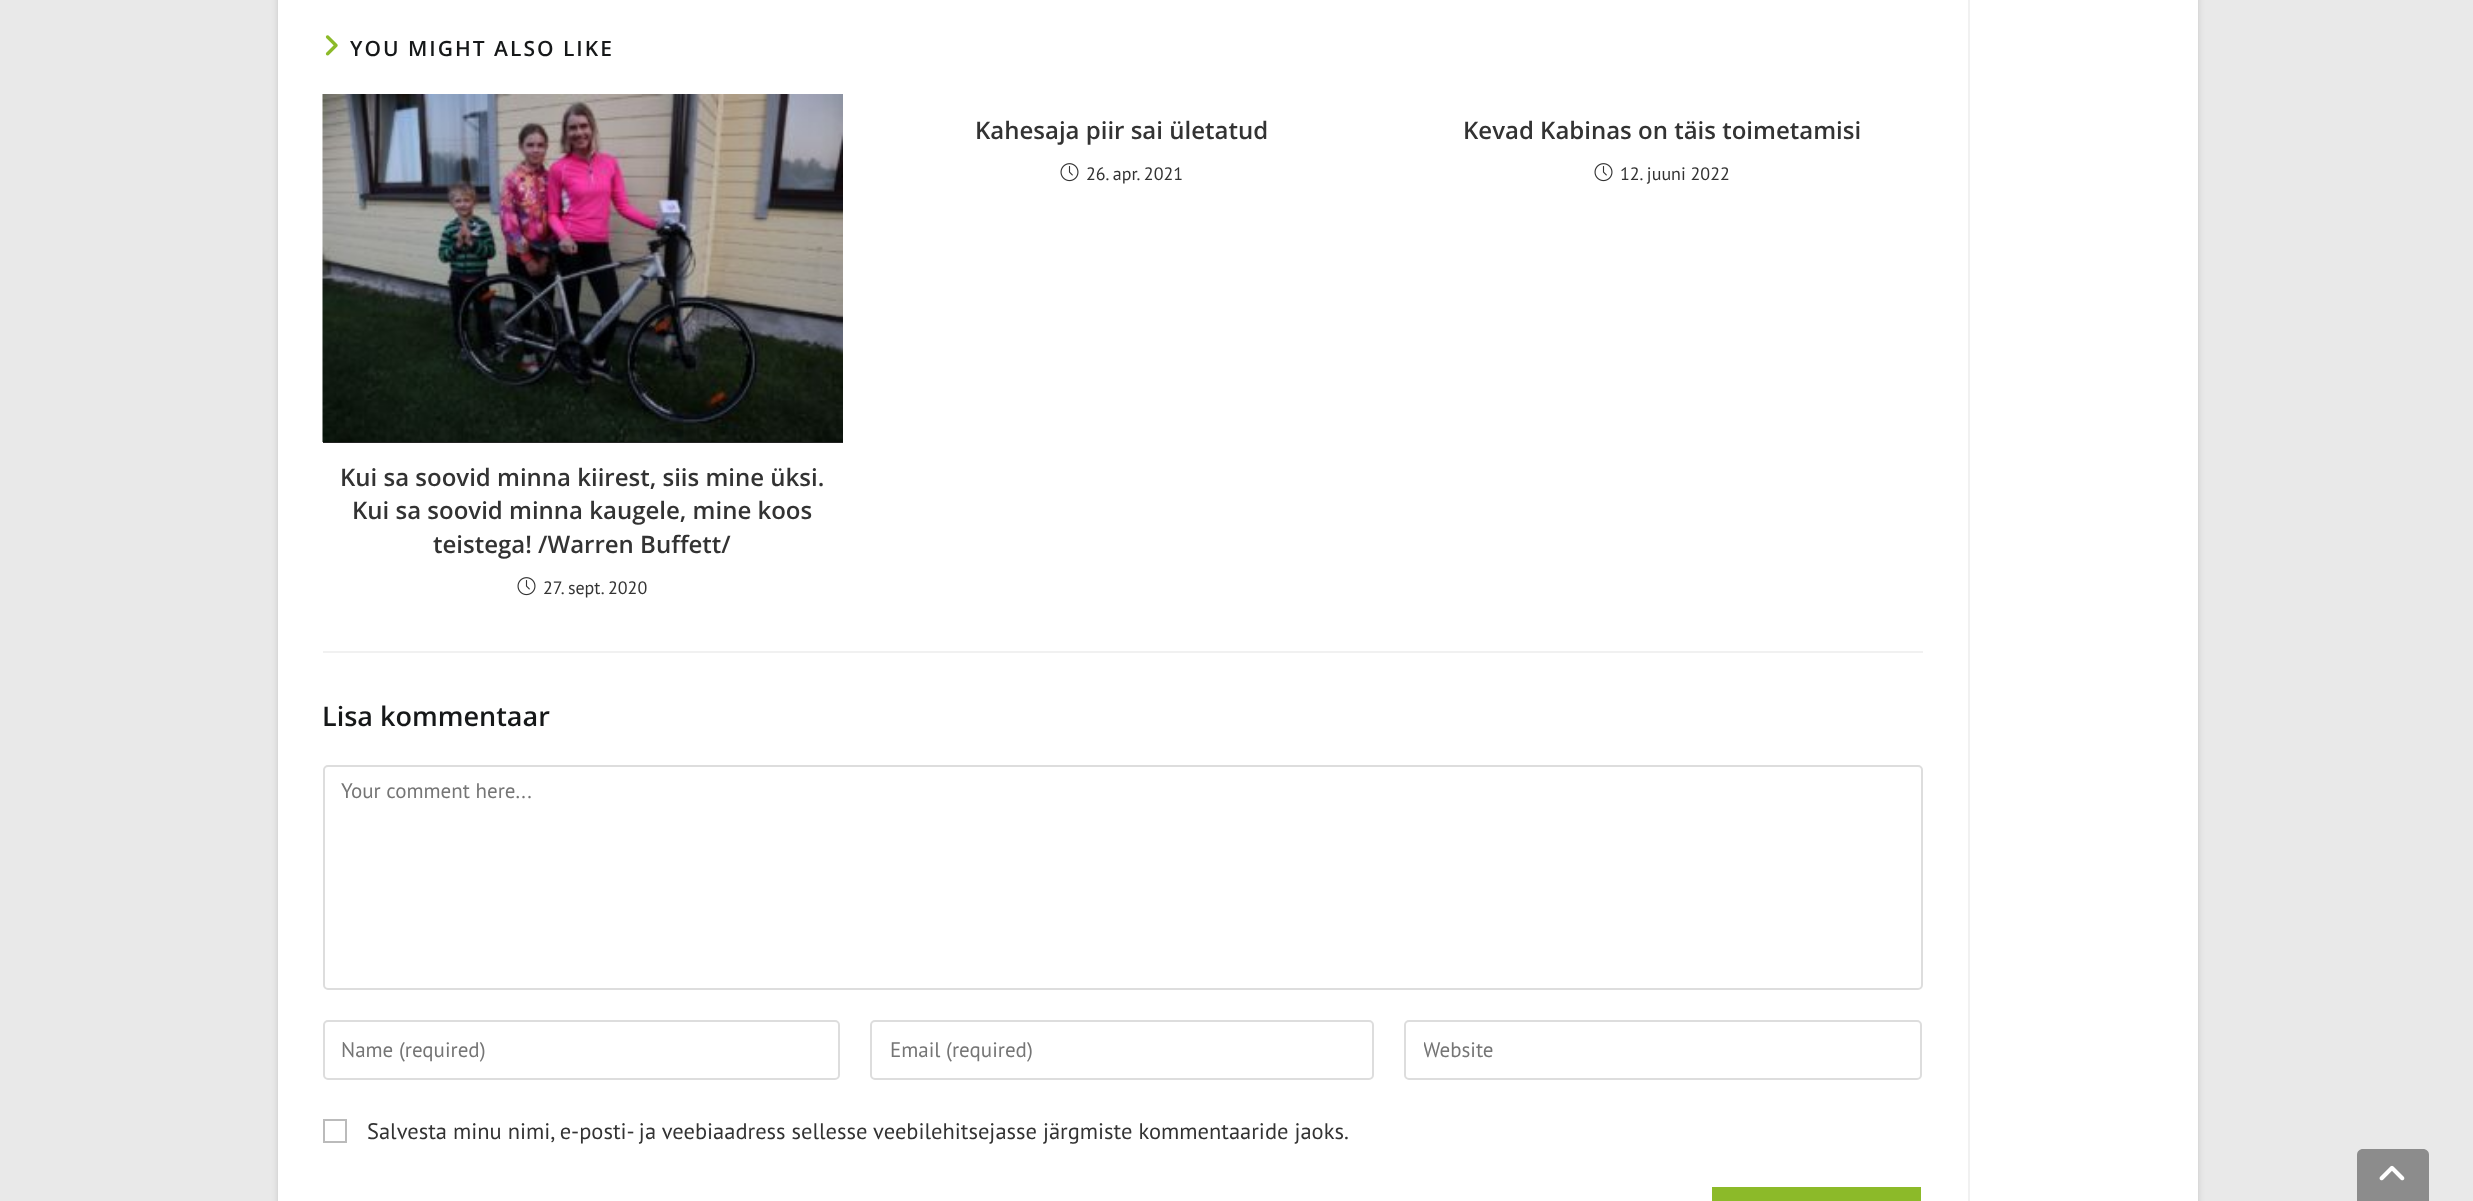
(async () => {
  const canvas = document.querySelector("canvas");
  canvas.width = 2473;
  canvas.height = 1201;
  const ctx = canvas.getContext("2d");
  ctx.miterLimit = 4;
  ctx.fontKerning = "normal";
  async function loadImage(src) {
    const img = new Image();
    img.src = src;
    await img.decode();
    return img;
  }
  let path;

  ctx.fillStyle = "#e9e9e9";
  ctx.fillRect(0, 0, 2473, 1201);
  ctx.fillStyle = "rgba(0, 0, 0, 0.15)";
  ctx.filter = "blur(3px)";
  ctx.beginPath();
  ctx.rect(278, -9, 1920, 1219);
  ctx.fill();
  ctx.filter = "none";
  ctx.fillStyle = "#ffffff";
  ctx.fillRect(278, 0, 1920, 1201);
  ctx.fillStyle = "#f1f1f1";
  ctx.fillRect(1968, 0, 2, 1201);
  ctx.drawImage(await loadImage("img/1.png"), 325, 35, 13, 21);
  ctx.drawImage(await loadImage("img/2.png"), 1060, 163, 19, 19);
  ctx.drawImage(await loadImage("img/2.png"), 1594, 163, 19, 19);
  ctx.fillStyle = "#222222";
  ctx.fillRect(323, 442, 520, 1);
  ctx.drawImage(await loadImage("img/3.png"), 322, 94, 521, 348);
  ctx.drawImage(await loadImage("img/2.png"), 517, 577, 19, 19);
  ctx.fillStyle = "#f1f1f1";
  ctx.fillRect(323, 651, 1600, 2);
  ctx.beginPath();
  ctx.roundRect(324, 766, 1598, 223, 4);
  ctx.strokeStyle = "#dddddd";
  ctx.lineWidth = 2;
  ctx.stroke();
  ctx.beginPath();
  ctx.roundRect(324, 1021, 515, 58, 4);
  ctx.stroke();
  ctx.beginPath();
  ctx.roundRect(871, 1021, 502, 58, 4);
  ctx.stroke();
  ctx.beginPath();
  ctx.roundRect(1405, 1021, 516, 58, 4);
  ctx.stroke();
  ctx.strokeStyle = "#bbbbbb";
  ctx.strokeRect(324, 1120, 22, 22);
  ctx.fillStyle = "#8cba29";
  ctx.fillRect(1712, 1187, 209, 14);
  ctx.fillStyle = "#8c8c8c";
  path = new Path2D("M2363 1149H2423C2426.5 1149 2429 1151.5 2429 1155V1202H2357V1155C2357 1151.5 2359.5 1149 2363 1149Z");
  ctx.fill(path);
  ctx.drawImage(await loadImage("img/4.png"), 2379, 1165, 26, 16);
  ctx.letterSpacing = "2px";
  ctx.font = "600 21px Open Sans";
  ctx.fillStyle = "#161819";
  ctx.fillText("YOU MIGHT ALSO LIKE", 350, 56);
  ctx.letterSpacing = "0px";
  ctx.font = "600 24px Open Sans";
  ctx.fillStyle = "#333333";
  ctx.fillText("Kahesaja piir sai ületatud", 975, 139);
  ctx.font = "18px PT Sans";
  ctx.fillText("26. apr. 2021", 1086, 180);
  ctx.font = "600 24px Open Sans";
  ctx.fillText("Kevad Kabinas on täis toimetamisi", 1463, 139);
  ctx.font = "18px PT Sans";
  ctx.fillText("12. juuni 2022", 1620, 180);
  ctx.font = "600 24px Open Sans";
  for (const [text, x, y] of [
    ["Kui sa soovid minna kiirest, siis mine üksi.", 340, 486],
    ["Kui sa soovid minna kaugele, mine koos", 352, 519],
    ["teistega! /Warren Buffett/", 433, 553],
  ]) {
    ctx.fillText(text, x, y);
  }
  ctx.font = "18px PT Sans";
  ctx.fillText("27. sept. 2020", 543, 594);
  ctx.font = "600 27px Open Sans";
  ctx.fillStyle = "#161819";
  ctx.fillText("Lisa kommentaar", 322, 726);
  ctx.font = "21px PT Sans";
  ctx.fillStyle = "#757575";
  for (const [text, x, y] of [
    ["Your comment here...", 341, 798],
    ["Name (required)", 341, 1057],
    ["Email (required)", 890, 1057],
  ]) {
    ctx.fillText(text, x, y);
  }
  ctx.save();
  ctx.beginPath();
  ctx.rect(1424, 1037, 478, 27);
  ctx.clip();
  ctx.fillText("Website", 1423, 1057);
  ctx.restore();
  ctx.font = "22.5px PT Sans";
  ctx.fillStyle = "#333333";
  ctx.fillText("Salvesta minu nimi, e-posti- ja veebiaadress sellesse veebilehitsejasse järgmiste kommentaaride jaoks.", 367, 1139);
})();
